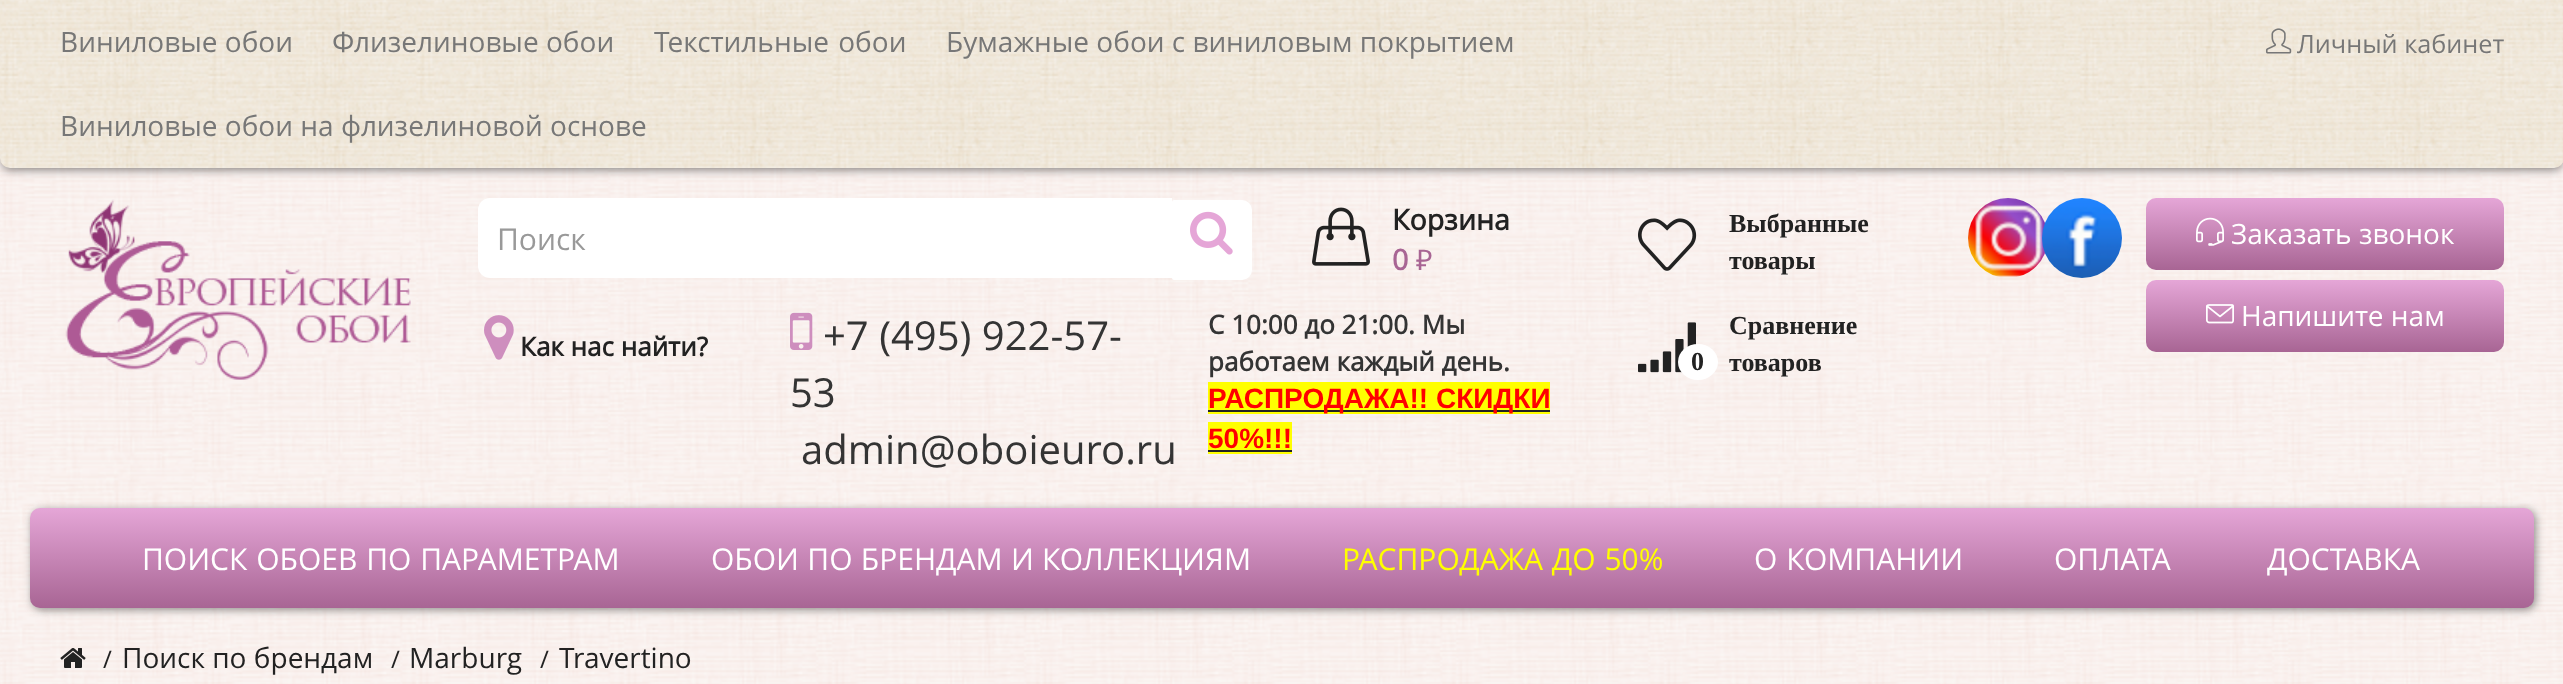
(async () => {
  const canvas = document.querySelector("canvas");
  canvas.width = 2563;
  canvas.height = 684;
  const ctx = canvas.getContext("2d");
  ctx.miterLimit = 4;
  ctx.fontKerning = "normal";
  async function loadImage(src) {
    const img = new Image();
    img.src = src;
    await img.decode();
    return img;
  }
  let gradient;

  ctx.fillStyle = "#ffffff";
  ctx.fillRect(0, 0, 2563, 684);
  ctx.drawImage(await loadImage("img/1.png"), 0, 158, 2563, 526);
  ctx.fillStyle = "rgba(0, 0, 0, 0.46)";
  ctx.filter = "blur(5px)";
  ctx.beginPath();
  ctx.roundRect(2, 6, 2560, 164, 8);
  ctx.fill();
  ctx.filter = "none";
  ctx.drawImage(await loadImage("img/2.png"), 0, 0, 2563, 168);
  ctx.drawImage(await loadImage("img/3.png"), 2266, 28, 26, 26);
  ctx.drawImage(await loadImage("img/4.png"), 65, 199, 346, 181);
  ctx.fillStyle = "#ffffff";
  ctx.beginPath();
  ctx.roundRect(478, 198, 694, 80, [12, 0, 0, 12]);
  ctx.fill();
  ctx.beginPath();
  ctx.roundRect(1172, 200, 80, 80, [2, 10, 10, 2]);
  ctx.fill();
  ctx.drawImage(await loadImage("img/5.png"), 1190, 211, 43, 44);
  ctx.drawImage(await loadImage("img/6.png"), 1312, 207, 58, 59);
  ctx.drawImage(await loadImage("img/7.png"), 484, 315, 30, 45);
  ctx.drawImage(await loadImage("img/8.png"), 790, 312, 23, 38);
  for (const [x, y, w, h, color] of [
    [1208, 382, 342, 32, "#ffff00"],
    [1208, 410, 342, 2, "#222222"],
    [1208, 422, 84, 32, "#ffff00"],
    [1208, 450, 84, 2, "#222222"],
  ]) {
    ctx.fillStyle = color;
    ctx.fillRect(x, y, w, h);
  }
  ctx.drawImage(await loadImage("img/9.png"), 1638, 218, 59, 53);
  ctx.drawImage(await loadImage("img/10.png"), 1638, 322, 58, 51);
  ctx.fillStyle = "#ffffff";
  ctx.beginPath();
  ctx.ellipse(1698, 362, 20, 18, 0, 0, Math.PI * 2);
  ctx.fill();
  ctx.drawImage(await loadImage("img/11.png"), 1968, 198, 77, 79);
  ctx.drawImage(await loadImage("img/12.png"), 2042, 198, 80, 80);
  gradient = ctx.createLinearGradient(2325, 198, 2325, 270);
  gradient.addColorStop(0, "#e5a6d7");
  gradient.addColorStop(1, "#a86594");
  ctx.fillStyle = gradient;
  ctx.beginPath();
  ctx.roundRect(2146, 198, 358, 72, 10);
  ctx.fill();
  ctx.drawImage(await loadImage("img/13.png"), 2196, 217, 28, 29);
  gradient = ctx.createLinearGradient(2325, 280, 2325, 352);
  gradient.addColorStop(0, "#e5a6d7");
  gradient.addColorStop(1, "#a86594");
  ctx.fillStyle = gradient;
  ctx.beginPath();
  ctx.roundRect(2146, 280, 358, 72, 10);
  ctx.fill();
  ctx.drawImage(await loadImage("img/14.png"), 2206, 304, 28, 20);
  ctx.fillStyle = "rgba(50, 50, 50, 0.52)";
  ctx.filter = "blur(4px)";
  ctx.beginPath();
  ctx.roundRect(32, 510, 2504, 100, 10);
  ctx.fill();
  ctx.filter = "none";
  gradient = ctx.createLinearGradient(1282, 508, 1282, 608);
  gradient.addColorStop(0, "#e5a6d7");
  gradient.addColorStop(1, "#a86594");
  ctx.fillStyle = gradient;
  ctx.beginPath();
  ctx.roundRect(30, 508, 2504, 100, 10);
  ctx.fill();
  ctx.drawImage(await loadImage("img/15.png"), 60, 648, 26, 20);
  ctx.font = "28px Open Sans";
  ctx.fillStyle = "#777777";
  ctx.fillText("Виниловые обои", 60, 52);
  ctx.fillText("Флизелиновые обои", 332, 52);
  ctx.wordSpacing = "2px";
  ctx.fillText("Текстильные обои", 654, 52);
  ctx.wordSpacing = "0px";
  ctx.fillText("Бумажные обои с виниловым покрытием", 946, 52);
  ctx.fillText("Виниловые обои на флизелиновой основе", 60, 136);
  ctx.font = "25.25px Open Sans";
  ctx.fillText("Личный кабинет", 2297, 53);
  ctx.font = "30px Open Sans";
  ctx.fillStyle = "#999999";
  ctx.fillText("Поиск", 497, 250);
  ctx.font = "bold 28.5px Open Sans";
  ctx.fillStyle = "#222222";
  ctx.fillText("Корзина", 1392, 230);
  ctx.fillStyle = "#a86594";
  ctx.fillText("0", 1392, 270);
  ctx.font = "28.5px Noto Sans";
  ctx.fillText("₽", 1416, 270);
  ctx.font = "bold 26px Open Sans";
  ctx.fillStyle = "#222222";
  ctx.fillText("Как нас найти?", 520, 356);
  ctx.font = "40px Open Sans";
  ctx.fillStyle = "#343434";
  for (const [text, x, y] of [
    ["+7 (495) 922-57-", 823, 350],
    ["53", 790, 407],
    ["admin@oboieuro.ru", 801, 464],
  ]) {
    ctx.fillText(text, x, y);
  }
  ctx.font = "bold 26px Open Sans";
  ctx.fillText("C 10:00 до 21:00. Мы", 1208, 334);
  ctx.fillText("работаем каждый день.", 1208, 371);
  ctx.font = "bold 28px Liberation Sans";
  ctx.fillStyle = "#ff0000";
  ctx.fillText("РАСПРОДАЖА!! СКИДКИ", 1208, 408);
  ctx.fillText("50%!!!", 1208, 448);
  ctx.font = "bold 26px Liberation Serif";
  ctx.fillStyle = "#222222";
  for (const [text, x, y] of [
    ["Выбранные", 1729, 232],
    ["товары", 1729, 269],
    ["0", 1691, 370],
    ["Сравнение", 1729, 334],
    ["товаров", 1729, 371],
  ]) {
    ctx.fillText(text, x, y);
  }
  ctx.font = "28px Open Sans";
  ctx.fillStyle = "#ffffff";
  ctx.fillText("Заказать звонок", 2231, 244);
  ctx.fillText("Напишите нам", 2241, 326);
  ctx.wordSpacing = "1px";
  ctx.font = "30px Open Sans";
  ctx.fillText("ПОИСК ОБОЕВ ПО ПАРАМЕТРАМ", 142, 570);
  ctx.wordSpacing = "0.5px";
  ctx.fillText("ОБОИ ПО БРЕНДАМ И КОЛЛЕКЦИЯМ", 711, 570);
  ctx.wordSpacing = "1px";
  ctx.fillStyle = "#ffff00";
  ctx.fillText("РАСПРОДАЖА ДО 50%", 1342, 570);
  ctx.fillStyle = "#ffffff";
  ctx.fillText("О КОМПАНИИ", 1754, 570);
  ctx.wordSpacing = "0px";
  ctx.fillText("ОПЛАТА", 2054, 570);
  ctx.fillText("ДОСТАВКА", 2267, 570);
  ctx.font = "24px Open Sans";
  ctx.fillStyle = "#222222";
  ctx.fillText("/", 103, 668);
  ctx.font = "28px Open Sans";
  ctx.fillText("Поиск по брендам", 122, 668);
  ctx.font = "24px Open Sans";
  ctx.fillText("/", 391, 668);
  ctx.font = "28px Open Sans";
  ctx.fillText("Marburg", 409, 668);
  ctx.font = "24px Open Sans";
  ctx.fillText("/", 540, 668);
  ctx.font = "28px Open Sans";
  ctx.fillText("Travertino", 559, 668);
})();
